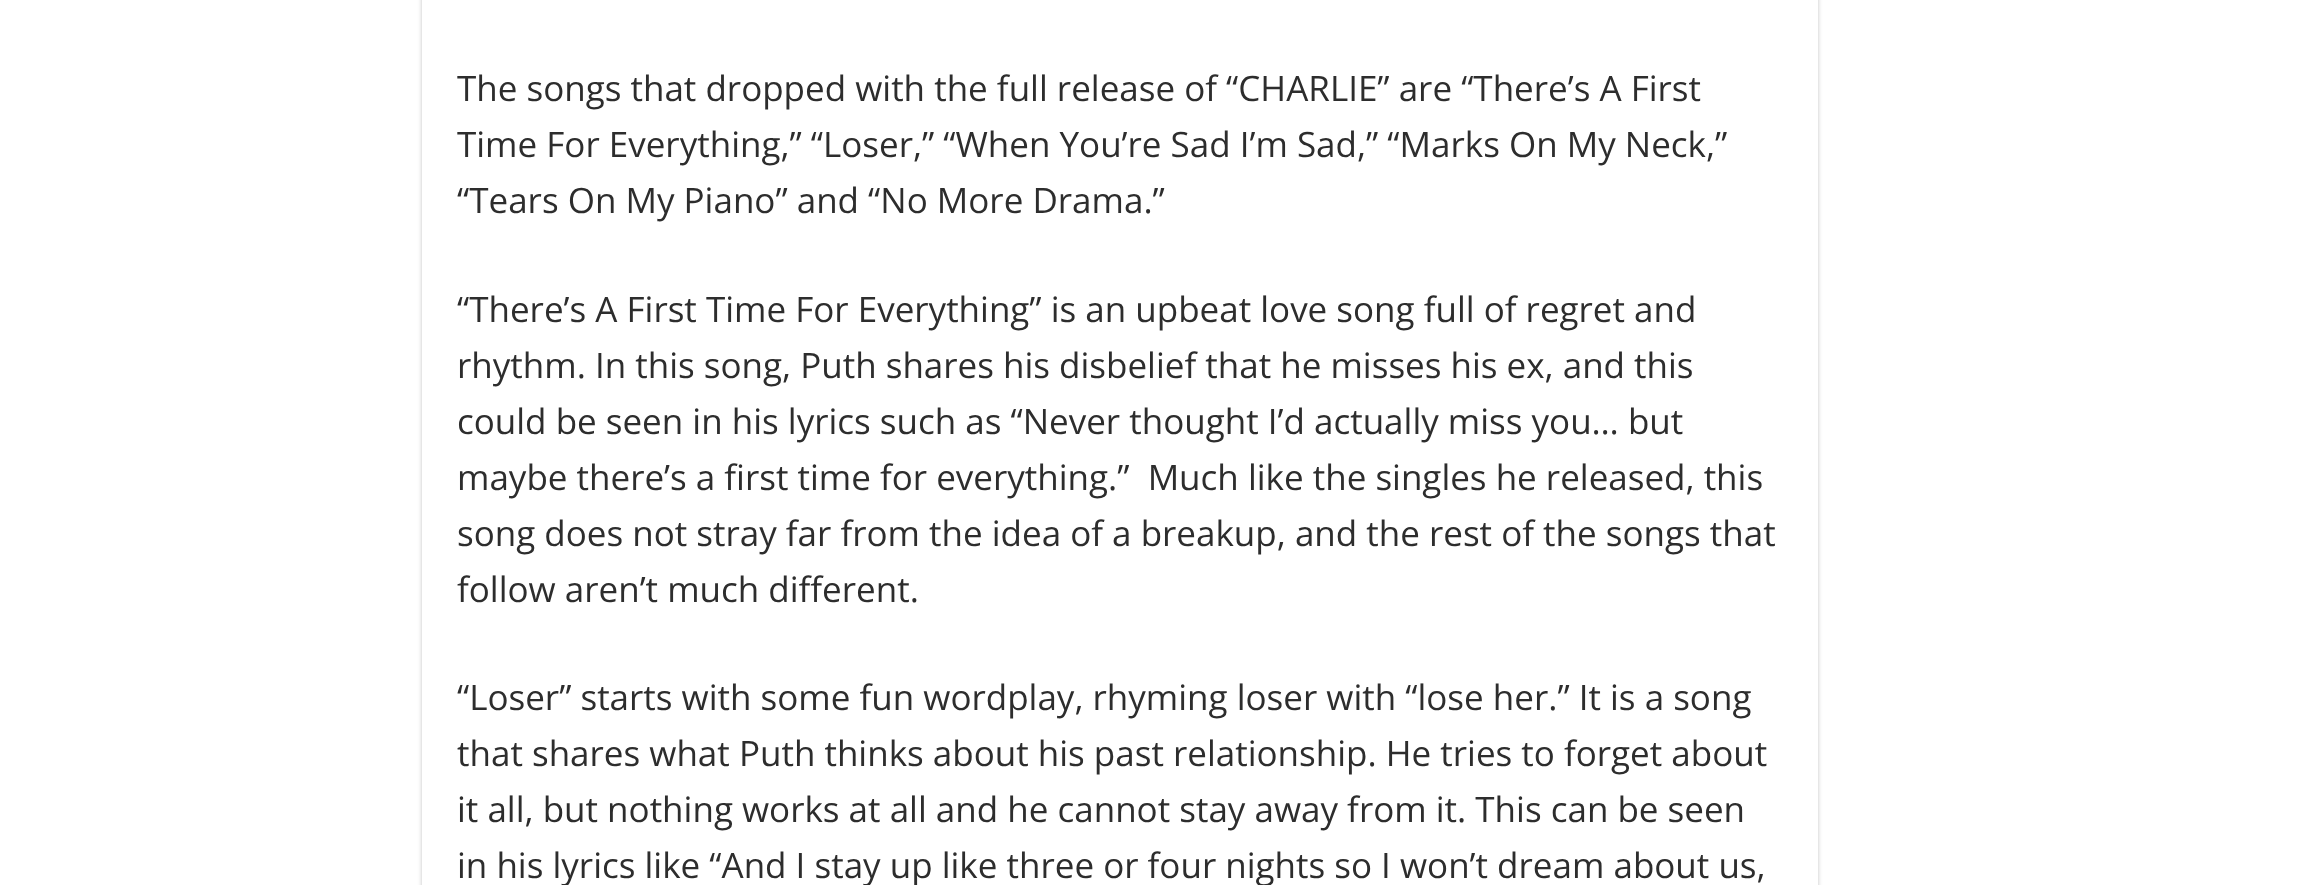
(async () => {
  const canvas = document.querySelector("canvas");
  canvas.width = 2305;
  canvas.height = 885;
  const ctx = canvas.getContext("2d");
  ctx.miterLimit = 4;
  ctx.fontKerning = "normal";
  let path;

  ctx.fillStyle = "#ffffff";
  ctx.fillRect(0, 0, 2305, 885);
  ctx.save();
  path = new Path2D("M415 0H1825V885H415ZM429-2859H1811C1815-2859 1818-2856 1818-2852V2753C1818 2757 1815 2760 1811 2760H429C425 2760 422 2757 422 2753V-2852C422-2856 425-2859 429-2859Z");
  ctx.clip(path, "evenodd");
  ctx.fillStyle = "rgba(0, 0, 0, 0.24)";
  ctx.filter = "blur(2px)";
  ctx.beginPath();
  ctx.roundRect(422, -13, 1396, 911, 7);
  ctx.fill();
  ctx.filter = "none";
  ctx.restore();
  ctx.font = "35px Open Sans";
  ctx.fillStyle = "#2d2d2d";
  for (const [text, x, y] of [
    ["The songs that dropped with the full release of “CHARLIE” are “There’s A First", 457, 101],
    ["Time For Everything,” “Loser,” “When You’re Sad I’m Sad,” “Marks On My Neck,”", 457, 157],
    ["“Tears On My Piano” and “No More Drama.”", 457, 213],
    ["“There’s A First Time For Everything” is an upbeat love song full of regret and", 457, 322],
    ["rhythm. In this song, Puth shares his disbelief that he misses his ex, and this", 457, 378],
    ["could be seen in his lyrics such as “Never thought I’d actually miss you… but", 457, 434],
    ["maybe there’s a first time for everything.”  Much like the singles he released, this", 457, 490],
    ["song does not stray far from the idea of a breakup, and the rest of the songs that", 457, 546],
    ["follow aren’t much different.", 457, 602],
    ["“Loser” starts with some fun wordplay, rhyming loser with “lose her.” It is a song", 457, 710],
    ["that shares what Puth thinks about his past relationship. He tries to forget about", 457, 766],
    ["it all, but nothing works at all and he cannot stay away from it. This can be seen", 457, 822],
    ["in his lyrics like “And I stay up like three or four nights so I won’t dream about us,", 457, 878],
  ]) {
    ctx.fillText(text, x, y);
  }
})();
